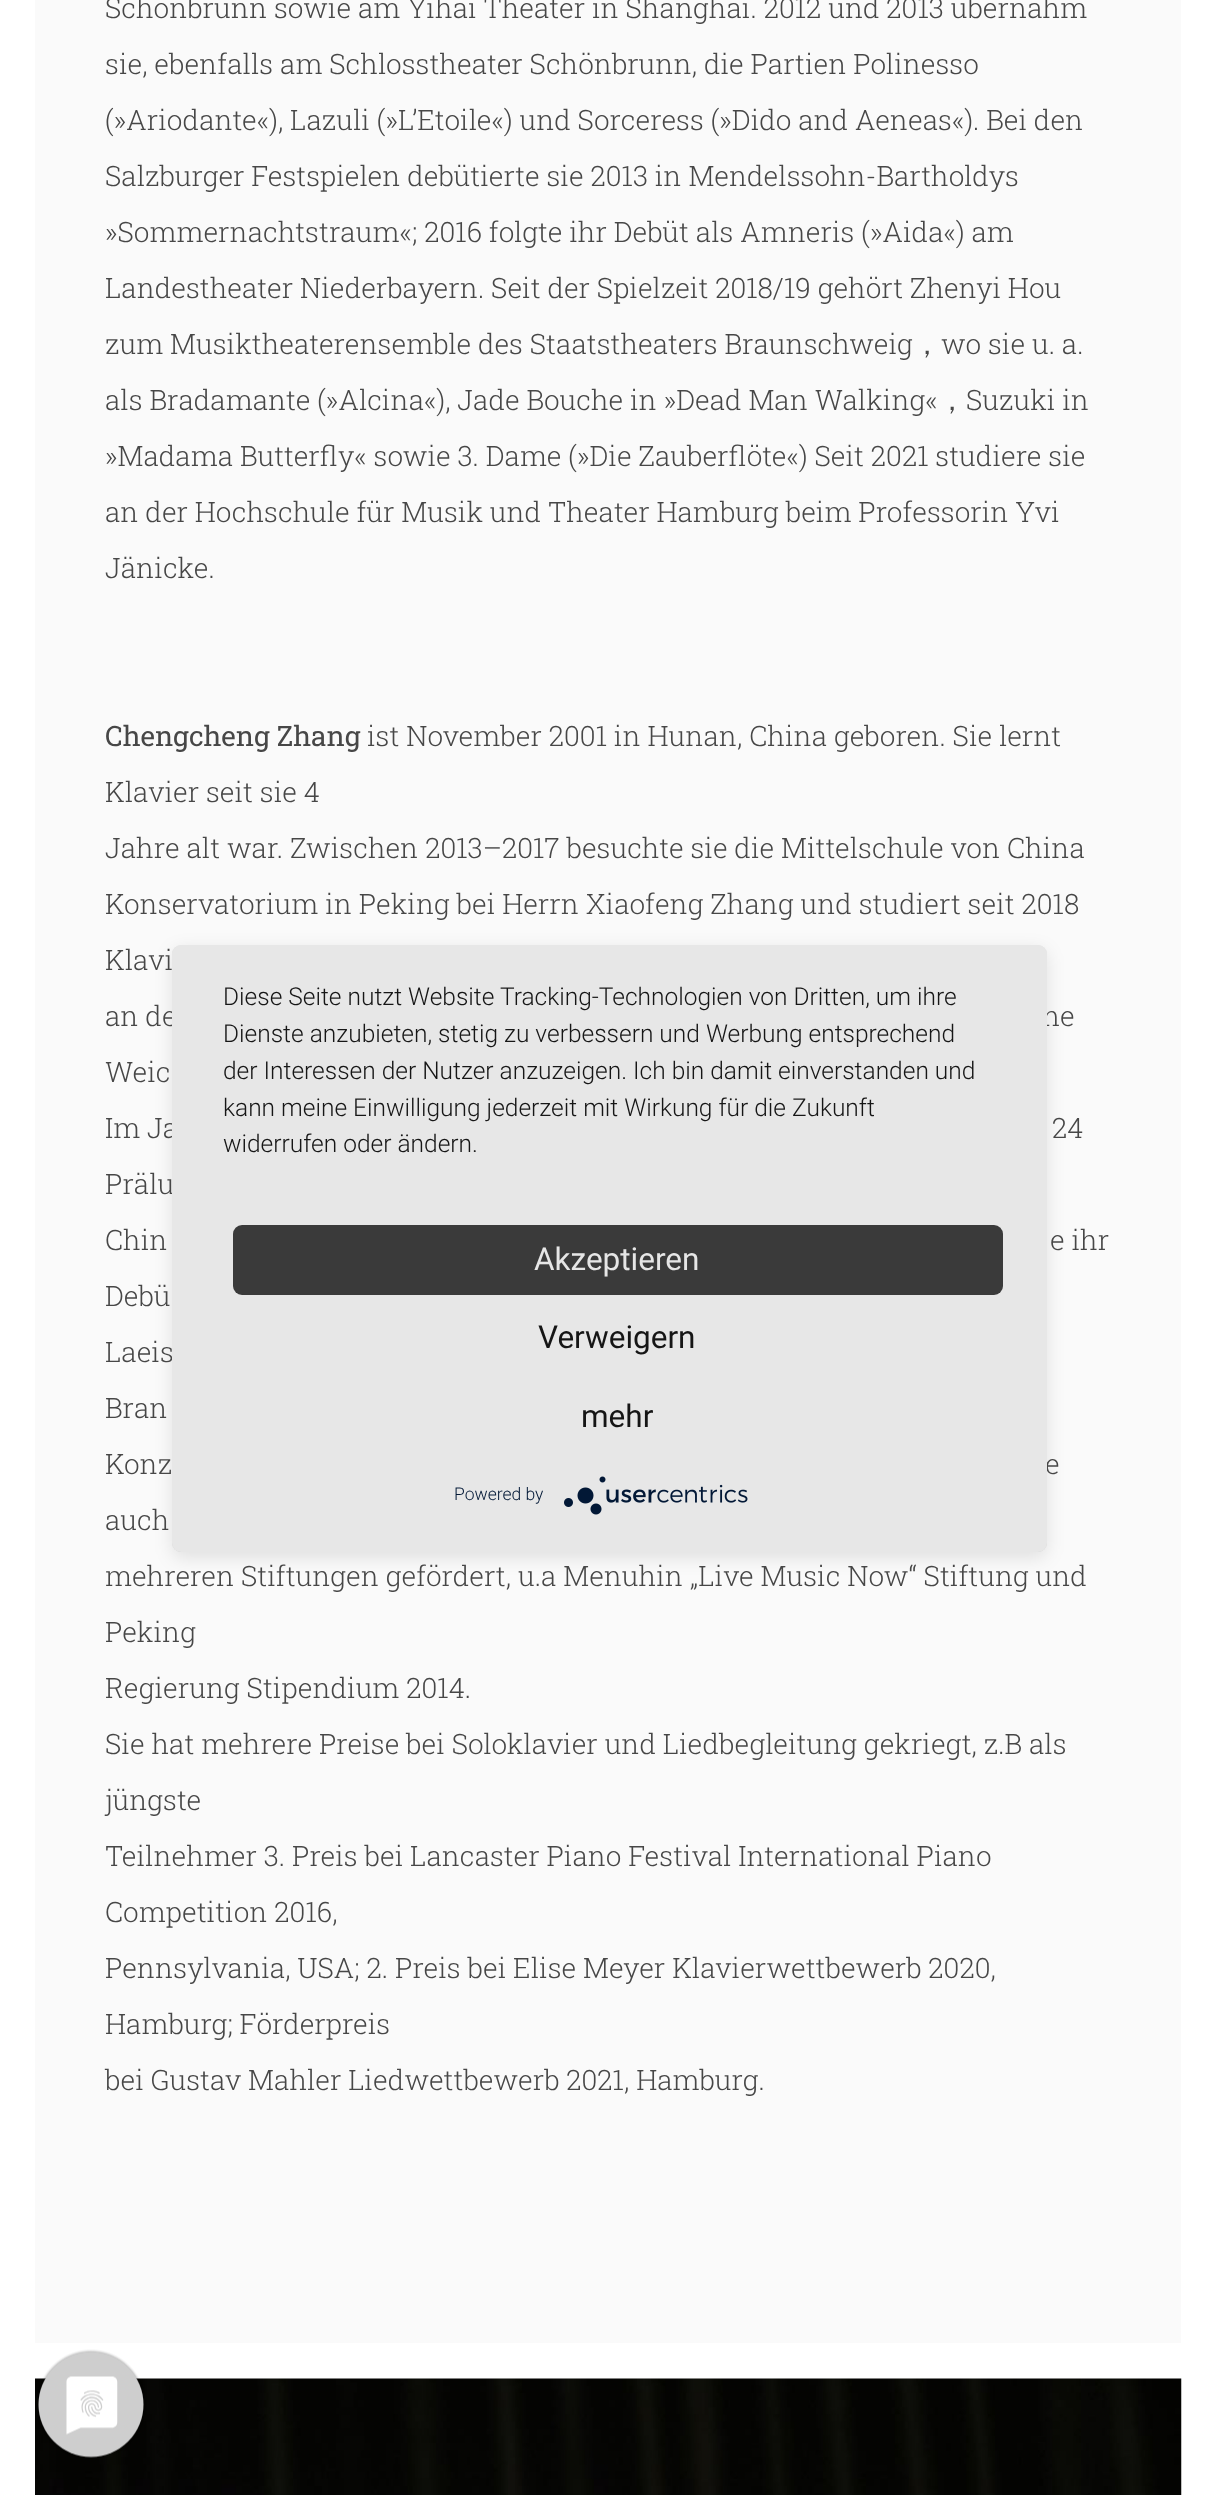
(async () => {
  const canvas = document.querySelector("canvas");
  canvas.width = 1215;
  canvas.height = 2495;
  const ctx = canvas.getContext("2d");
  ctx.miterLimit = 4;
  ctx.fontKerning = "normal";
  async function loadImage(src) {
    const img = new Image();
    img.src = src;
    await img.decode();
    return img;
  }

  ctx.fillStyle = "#ffffff";
  ctx.fillRect(0, 0, 1215, 2495);
  ctx.fillStyle = "#fafafa";
  ctx.fillRect(35, 0, 1146, 2343);
  ctx.drawImage(await loadImage("img/1.png"), 35, 2378, 1147, 117);
  ctx.fillStyle = "rgba(0, 0, 0, 0.1)";
  ctx.filter = "blur(9px)";
  ctx.beginPath();
  ctx.roundRect(172, 950, 875, 608, 9);
  ctx.fill();
  ctx.filter = "none";
  ctx.save();
  ctx.beginPath();
  ctx.roundRect(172, 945, 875, 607, 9);
  ctx.clip();
  ctx.fillStyle = "rgba(0, 0, 0, 0.3)";
  ctx.filter = "blur(31.5px)";
  ctx.beginPath();
  ctx.rect(172, 956, 875, 607);
  ctx.fill();
  ctx.filter = "none";
  ctx.restore();
  ctx.drawImage(await loadImage("img/3.png"), 38, 2349, 106, 109);
  ctx.font = "300 28px Roboto Slab";
  ctx.fillStyle = "#474747";
  for (const [text, x, y] of [
    ["Schönbrunn sowie am Yihai Theater in Shanghai. 2012 und 2013 übernahm", 105, 18],
    ["sie, ebenfalls am Schlosstheater Schönbrunn, die Partien Polinesso", 105, 74],
    ["(»Ariodante«), Lazuli (»L’Etoile«) und Sorceress (»Dido and Aeneas«). Bei den", 105, 130],
    ["Salzburger Festspielen debütierte sie 2013 in Mendelssohn-Bartholdys", 105, 186],
    ["»Sommernachtstraum«; 2016 folgte ihr Debüt als Amneris (»Aida«) am", 105, 242],
    ["Landestheater Niederbayern. Seit der Spielzeit 2018/19 gehört Zhenyi Hou", 105, 298],
    ["zum Musiktheaterensemble des Staatstheaters Braunschweig", 105, 354],
  ]) {
    ctx.fillText(text, x, y);
  }
  ctx.font = "500 28px WenQuanYi Zen Hei";
  ctx.fillText("，", 913, 354);
  ctx.font = "300 28px Roboto Slab";
  ctx.fillText("wo sie u. a.", 941, 354);
  ctx.fillText("als Bradamante (»Alcina«), Jade Bouche in »Dead Man Walking«", 105, 410);
  ctx.font = "500 28px WenQuanYi Zen Hei";
  ctx.fillText("，", 938, 410);
  ctx.font = "300 28px Roboto Slab";
  for (const [text, x, y] of [
    ["Suzuki in", 966, 410],
    ["»Madama Butterfly« sowie 3. Dame (»Die Zauberflöte«) Seit 2021 studiere sie", 105, 466],
    ["an der Hochschule für Musik und Theater Hamburg beim Professorin Yvi", 105, 522],
    ["Jänicke.", 105, 578],
  ]) {
    ctx.fillText(text, x, y);
  }
  ctx.font = "28px Roboto Slab";
  ctx.fillText("Chengcheng Zhang", 105, 746);
  ctx.font = "300 28px Roboto Slab";
  for (const [text, x, y] of [
    ["ist November 2001 in Hunan, China geboren. Sie lernt", 367, 746],
    ["Klavier seit sie 4", 105, 802],
    ["Jahre alt war. Zwischen 2013–2017 besuchte sie die Mittelschule von China", 105, 858],
    ["Konservatorium in Peking bei Herrn Xiaofeng Zhang und studiert seit 2018", 105, 914],
    ["Klavi", 105, 970],
    ["an de", 105, 1026],
    ["ne", 1042, 1026],
    ["Weic", 105, 1082],
    ["Im Ja", 105, 1138],
    ["24", 1052, 1138],
    ["Prälu", 105, 1194],
    ["Chin", 105, 1250],
    ["e ihr", 1050, 1250],
    ["Debü", 105, 1306],
    ["Laeis", 105, 1362],
    ["Bran", 105, 1418],
    ["Konz", 105, 1474],
    ["e", 1045, 1474],
    ["auch", 105, 1530],
    ["mehreren Stiftungen gefördert, u.a Menuhin „Live Music Now“ Stiftung und", 105, 1586],
    ["Peking", 105, 1642],
    ["Regierung Stipendium 2014.", 105, 1698],
    ["Sie hat mehrere Preise bei Soloklavier und Liedbegleitung gekriegt, z.B als", 105, 1754],
    ["jüngste", 105, 1810],
    ["Teilnehmer 3. Preis bei Lancaster Piano Festival International Piano", 105, 1866],
    ["Competition 2016,", 105, 1922],
    ["Pennsylvania, USA; 2. Preis bei Elise Meyer Klavierwettbewerb 2020,", 105, 1978],
    ["Hamburg; Förderpreis", 105, 2034],
    ["bei Gustav Mahler Liedwettbewerb 2021, Hamburg.", 105, 2090],
  ]) {
    ctx.fillText(text, x, y);
  }
  ctx.fillStyle = "#e7e7e7";
  ctx.beginPath();
  ctx.roundRect(172, 945, 875, 607, 9);
  ctx.fill();
  ctx.font = "300 24.5px Roboto";
  ctx.fillStyle = "#161616";
  for (const [text, x, y] of [
    ["Diese Seite nutzt Website Tracking-Technologien von Dritten, um ihre", 223, 1005],
    ["Dienste anzubieten, stetig zu verbessern und Werbung entsprechend", 223, 1042],
    ["der Interessen der Nutzer anzuzeigen. Ich bin damit einverstanden und", 223, 1079],
    ["kann meine Einwilligung jederzeit mit Wirkung für die Zukunft", 223, 1116],
    ["widerrufen oder ändern.", 223, 1152],
  ]) {
    ctx.fillText(text, x, y);
  }
  ctx.fillStyle = "#3a3a3a";
  ctx.beginPath();
  ctx.roundRect(233, 1225, 770, 70, 9);
  ctx.fill();
  ctx.font = "31.5px Roboto";
  ctx.fillStyle = "#e6e6e6";
  ctx.fillText("Akzeptieren", 534, 1270);
  ctx.fillStyle = "#161616";
  ctx.fillText("Verweigern", 538, 1348);
  ctx.fillText("mehr", 581, 1427);
  ctx.font = "300 17.5px Roboto";
  ctx.fillStyle = "#021836";
  ctx.fillText("Powered by", 454, 1500);
  ctx.drawImage(await loadImage("img/2.png"), 564, 1476, 184, 39);
})();
